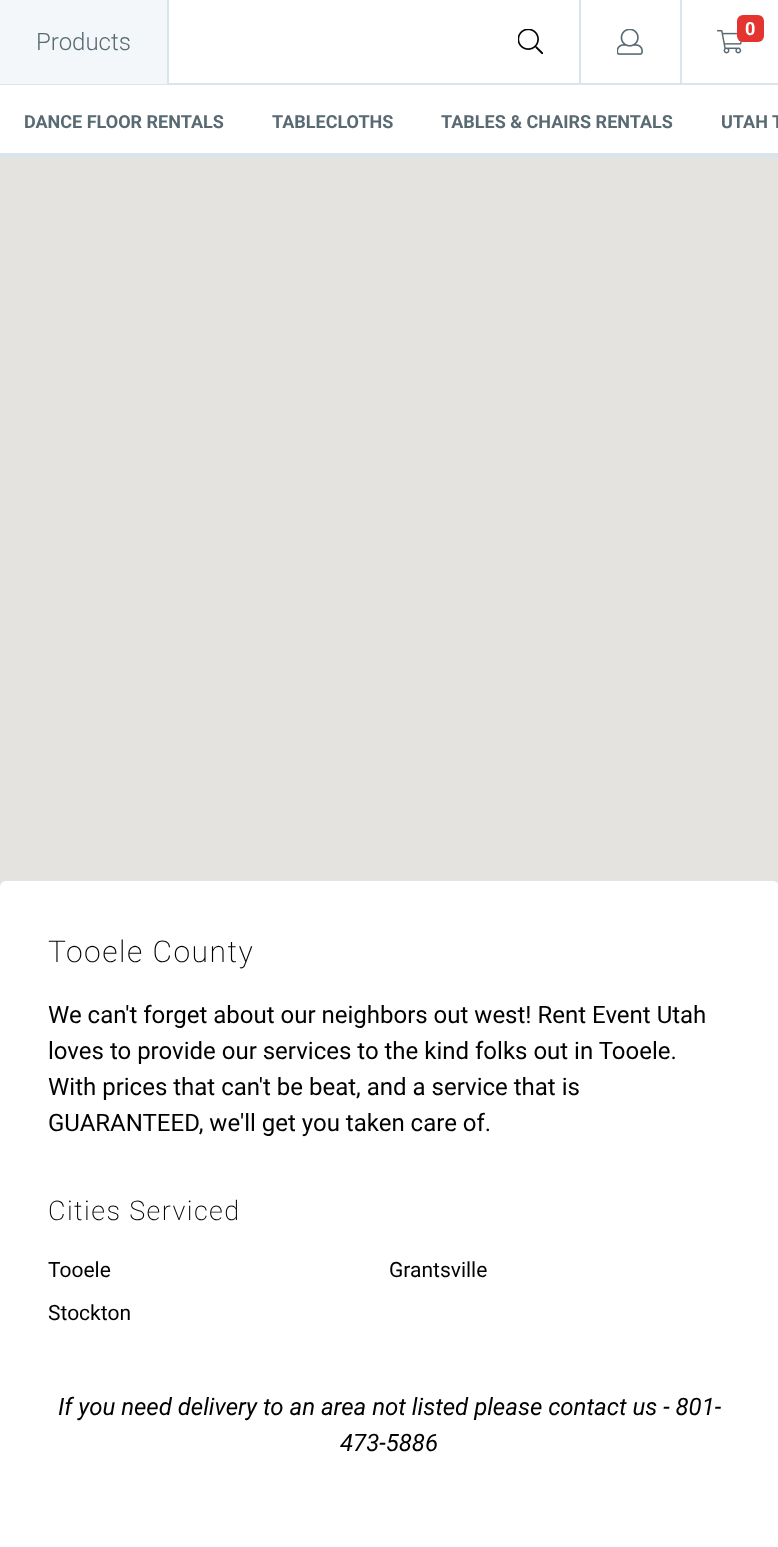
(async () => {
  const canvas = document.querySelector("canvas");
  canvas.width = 778;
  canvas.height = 1547;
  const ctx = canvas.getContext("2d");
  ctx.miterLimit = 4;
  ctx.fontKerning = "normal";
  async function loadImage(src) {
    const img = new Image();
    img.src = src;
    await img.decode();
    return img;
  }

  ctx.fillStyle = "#ffffff";
  ctx.fillRect(0, 0, 778, 1547);
  for (const [x, y, w, h, color] of [
    [0, 83, 778, 2, "#dbe4e8"],
    [0, 0, 167, 84, "#f3f7f9"],
    [167, 0, 2, 84, "#dae4e9"],
  ]) {
    ctx.fillStyle = color;
    ctx.fillRect(x, y, w, h);
  }
  ctx.drawImage(await loadImage("img/1.png"), 518, 29, 25, 25);
  ctx.fillRect(579, 0, 2, 84);
  ctx.drawImage(await loadImage("img/2.png"), 617, 29, 26, 26);
  ctx.fillRect(680, 0, 2, 84);
  ctx.drawImage(await loadImage("img/3.png"), 717, 29, 25, 25);
  ctx.fillStyle = "#e3342f";
  ctx.beginPath();
  ctx.roundRect(737, 15, 27, 27, 6);
  ctx.fill();
  ctx.fillStyle = "#dae4e9";
  ctx.fillRect(0, 153, 778, 5);
  ctx.fillStyle = "#e5e3df";
  ctx.fillRect(0, 158, 778, 729);
  ctx.fillStyle = "#ffffff";
  ctx.beginPath();
  ctx.roundRect(0, 881, 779, 628, 6);
  ctx.fill();
  ctx.font = "300 24px Roboto";
  ctx.fillStyle = "#596a73";
  ctx.fillText("Products", 36, 50);
  ctx.font = "bold 18px Roboto";
  ctx.fillStyle = "#ffffff";
  ctx.fillText("0", 745, 35);
  ctx.fillStyle = "#596a73";
  for (const [text, x, y] of [
    ["DANCE FLOOR RENTALS", 24, 128],
    ["TABLECLOTHS", 272, 128],
    ["TABLES & CHAIRS RENTALS", 441, 128],
    ["UTAH T", 721, 128],
  ]) {
    ctx.fillText(text, x, y);
  }
  ctx.letterSpacing = "1.5px";
  ctx.font = "200 30px Roboto";
  ctx.fillStyle = "#000000";
  ctx.fillText("Tooele County", 48, 962);
  ctx.letterSpacing = "0px";
  ctx.font = "24px Roboto";
  for (const [text, x, y] of [
    ["We can't forget about our neighbors out west! Rent Event Utah", 48, 1023],
    ["loves to provide our services to the kind folks out in Tooele.", 48, 1059],
    ["With prices that can't be beat, and a service that is", 48, 1095],
    ["GUARANTEED, we'll get you taken care of.", 48, 1131],
  ]) {
    ctx.fillText(text, x, y);
  }
  ctx.letterSpacing = "1.4px";
  ctx.font = "200 27px Roboto";
  ctx.fillText("Cities Serviced", 48, 1220);
  ctx.letterSpacing = "0px";
  ctx.font = "21px Roboto";
  for (const [text, x, y] of [
    ["Tooele", 48, 1277],
    ["Grantsville", 389, 1277],
    ["Stockton", 48, 1320],
  ]) {
    ctx.fillText(text, x, y);
  }
  ctx.font = "italic 24px Roboto";
  ctx.fillText("If you need delivery to an area not listed please contact us - 801-", 58, 1415);
  ctx.fillText("473-5886", 340, 1451);
})();
